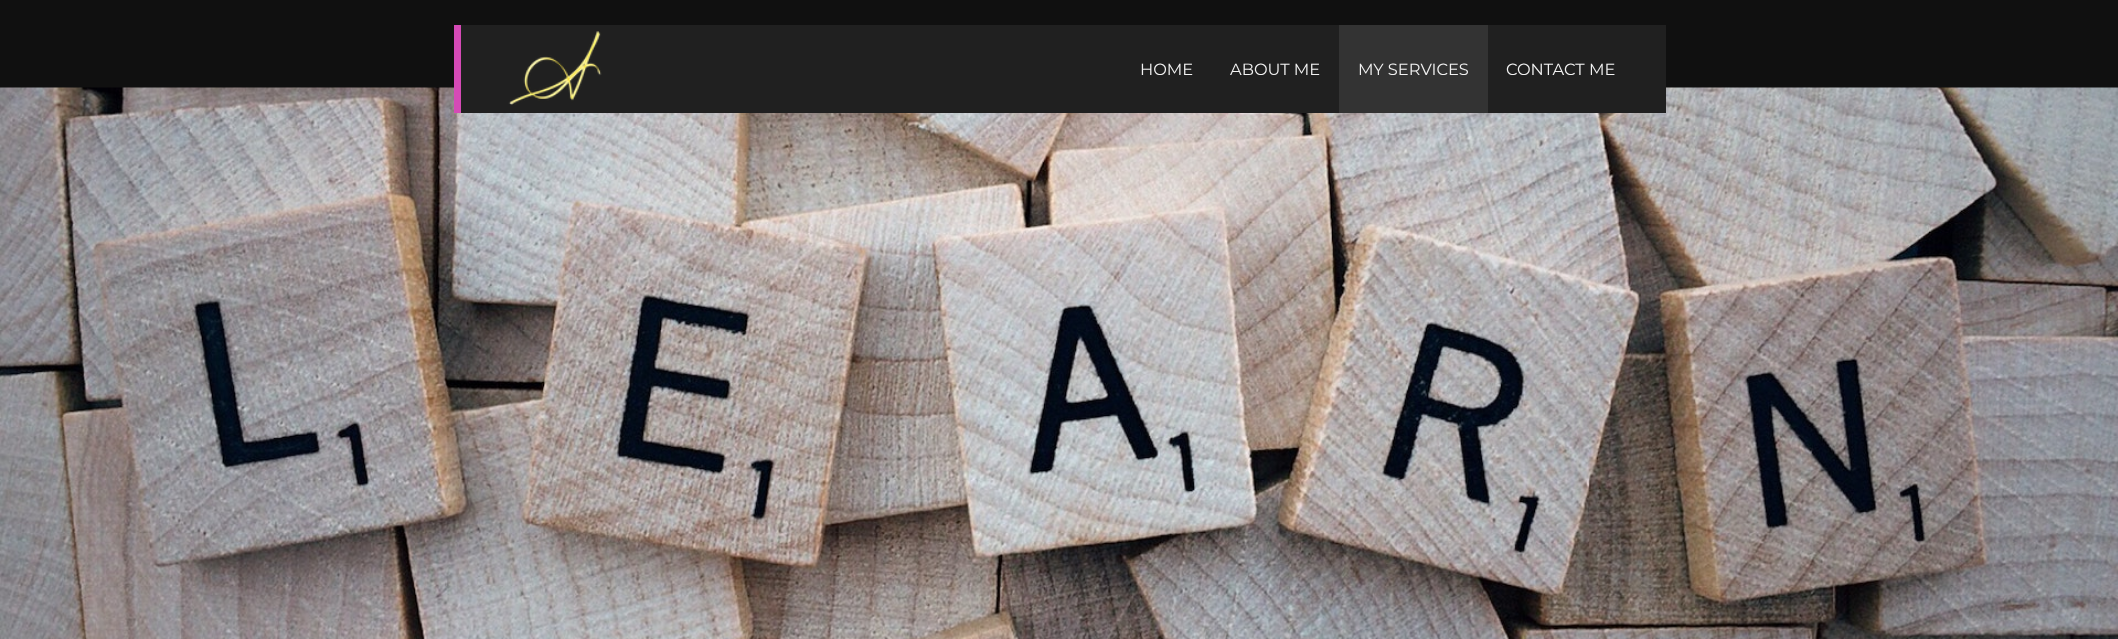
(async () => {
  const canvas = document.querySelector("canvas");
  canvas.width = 2118;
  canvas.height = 639;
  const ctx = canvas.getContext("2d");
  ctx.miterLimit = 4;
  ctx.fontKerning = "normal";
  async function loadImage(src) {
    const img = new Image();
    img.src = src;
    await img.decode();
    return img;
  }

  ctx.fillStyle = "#101010";
  ctx.fillRect(0, 0, 2118, 639);
  ctx.drawImage(await loadImage("img/2.png"), 0, 87, 2118, 552);
  ctx.fillStyle = "#202020";
  ctx.fillRect(461, 25, 1205, 88);
  ctx.fillStyle = "#d54ab6";
  ctx.fillRect(454, 25, 7, 88);
  ctx.drawImage(await loadImage("img/1.png"), 508, 31, 94, 74);
  ctx.fillStyle = "#333333";
  ctx.fillRect(1339, 25, 149, 88);
  ctx.font = "16.25px Montserrat";
  ctx.fillStyle = "#f2f2f2";
  for (const [text, x, y] of [
    ["HOME", 1140, 75],
    ["ABOUT ME", 1230, 75],
    ["MY SERVICES", 1358, 75],
    ["CONTACT ME", 1506, 75],
  ]) {
    ctx.fillText(text, x, y);
  }
})();
